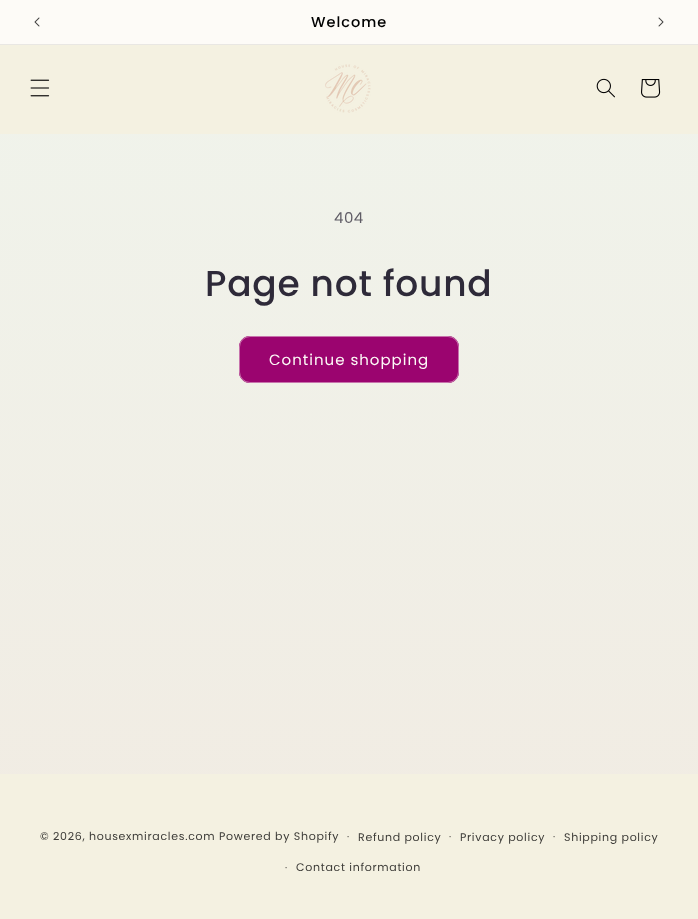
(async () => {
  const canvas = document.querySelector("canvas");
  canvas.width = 698;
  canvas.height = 919;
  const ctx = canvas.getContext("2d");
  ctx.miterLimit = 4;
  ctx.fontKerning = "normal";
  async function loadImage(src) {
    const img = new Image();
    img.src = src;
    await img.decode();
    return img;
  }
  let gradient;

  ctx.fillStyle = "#ffffff";
  ctx.fillRect(0, 0, 698, 919);
  gradient = ctx.createLinearGradient(349, 0, 349, 919);
  gradient.addColorStop(0, "#f0f4ec");
  gradient.addColorStop(1, "#f1ebe2");
  ctx.fillStyle = gradient;
  ctx.fillRect(0, 134, 698, 640);
  ctx.fillStyle = "#fdfbf7";
  ctx.fillRect(0, 0, 698, 44);
  ctx.fillStyle = "#e9e7e3";
  ctx.fillRect(0, 44, 698, 1);
  ctx.drawImage(await loadImage("img/1.png"), 34, 17, 6, 10);
  ctx.drawImage(await loadImage("img/2.png"), 658, 17, 6, 10);
  ctx.fillStyle = "#f4f1e1";
  ctx.fillRect(0, 45, 698, 89);
  ctx.drawImage(await loadImage("img/3.png"), 30, 79, 20, 18);
  ctx.drawImage(await loadImage("img/4.png"), 325, 64, 46, 49);
  ctx.drawImage(await loadImage("img/5.png"), 596, 78, 19, 20);
  ctx.drawImage(await loadImage("img/6.png"), 641, 79, 20, 19);
  ctx.fillStyle = "#9b046f";
  ctx.beginPath();
  ctx.roundRect(239, 336, 220, 47, 11);
  ctx.fill();
  ctx.beginPath();
  ctx.roundRect(239.5, 336.5, 219, 46, 10.5);
  ctx.strokeStyle = "#9b046f";
  ctx.stroke();
  ctx.beginPath();
  ctx.roundRect(239.5, 336.5, 219, 46, 10.5);
  ctx.strokeStyle = "rgba(253, 251, 247, 0.45)";
  ctx.stroke();
  ctx.fillStyle = "#f4f1e1";
  ctx.fillRect(0, 774, 698, 145);
  ctx.letterSpacing = "1px";
  ctx.font = "500 14.5px Poppins";
  ctx.fillStyle = "#000000";
  ctx.fillText("Welcome", 311, 27);
  ctx.letterSpacing = "0.5px";
  ctx.font = "15px Poppins";
  ctx.fillStyle = "#5f5c65";
  ctx.fillText("404", 334, 223);
  ctx.letterSpacing = "0.75px";
  ctx.font = "500 36px Poppins";
  ctx.fillStyle = "#2e2a39";
  ctx.fillText("Page not found", 205, 296);
  ctx.letterSpacing = "1px";
  ctx.font = "15px Poppins";
  ctx.fillStyle = "#fdfbf7";
  ctx.fillText("Continue shopping", 269, 365);
  ctx.letterSpacing = "0.7px";
  ctx.font = "11px Poppins";
  ctx.fillStyle = "#3d3c38";
  ctx.fillText("© 2026, housexmiracles.com Powered by Shopify", 40, 840);
  ctx.font = "10px Poppins";
  ctx.fillText("·", 347, 840);
  ctx.font = "11px Poppins";
  ctx.fillText("Refund policy", 358, 841);
  ctx.font = "10px Poppins";
  ctx.fillText("·", 449, 840);
  ctx.font = "11px Poppins";
  ctx.fillText("Privacy policy", 460, 841);
  ctx.font = "10px Poppins";
  ctx.fillText("·", 553, 840);
  ctx.font = "11px Poppins";
  ctx.fillText("Shipping policy", 564, 841);
  ctx.font = "10px Poppins";
  ctx.fillText("·", 285, 871);
  ctx.font = "11px Poppins";
  ctx.fillText("Contact information", 296, 871);
})();
